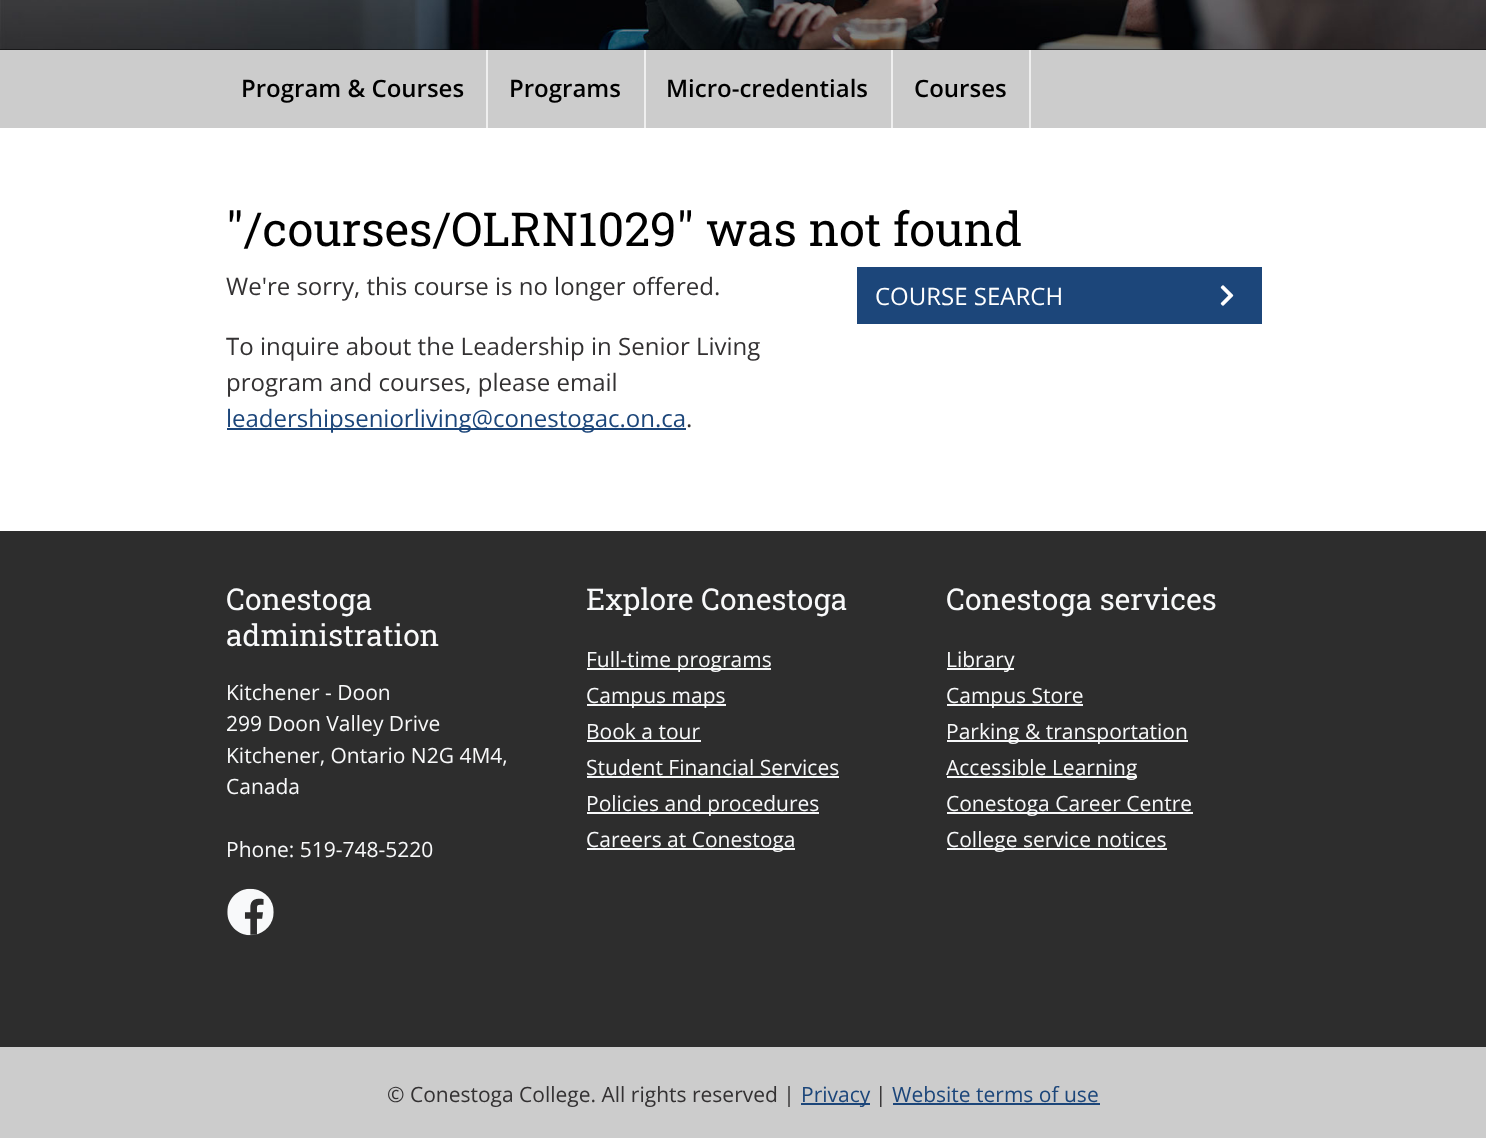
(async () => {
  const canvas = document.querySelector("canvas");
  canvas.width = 1486;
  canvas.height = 1138;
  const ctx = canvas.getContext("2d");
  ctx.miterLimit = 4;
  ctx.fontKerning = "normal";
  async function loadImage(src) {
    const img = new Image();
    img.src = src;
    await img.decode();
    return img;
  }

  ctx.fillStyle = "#cccccc";
  ctx.fillRect(0, 0, 1486, 1138);
  ctx.fillStyle = "#000000";
  ctx.fillRect(0, 49, 1486, 1);
  ctx.drawImage(await loadImage("img/1.png"), 0, 0, 1486, 50);
  for (const [x, y, w, h, color] of [
    [486, 50, 2, 78, "#efefef"],
    [644, 50, 2, 78, "#efefef"],
    [891, 50, 2, 78, "#efefef"],
    [1029, 50, 2, 78, "#efefef"],
    [0, 128, 1486, 403, "#ffffff"],
    [227, 428, 459, 2, "#1c467a"],
    [857, 267, 405, 57, "#1c467a"],
  ]) {
    ctx.fillStyle = color;
    ctx.fillRect(x, y, w, h);
  }
  ctx.drawImage(await loadImage("img/2.png"), 1220, 285, 14, 21);
  ctx.fillStyle = "#2d2d2d";
  ctx.fillRect(0, 531, 1486, 516);
  ctx.drawImage(await loadImage("img/3.png"), 227, 888, 47, 48);
  for (const [x, y, w, h, color] of [
    [587, 668, 184, 2, "#f8f9fa"],
    [587, 704, 139, 2, "#f8f9fa"],
    [587, 740, 114, 2, "#f8f9fa"],
    [587, 776, 252, 2, "#f8f9fa"],
    [587, 812, 232, 2, "#f8f9fa"],
    [587, 848, 208, 2, "#f8f9fa"],
    [947, 668, 67, 2, "#f8f9fa"],
    [947, 704, 136, 2, "#f8f9fa"],
    [947, 740, 241, 2, "#f8f9fa"],
    [947, 776, 190, 2, "#f8f9fa"],
    [947, 812, 246, 2, "#f8f9fa"],
    [947, 848, 220, 2, "#f8f9fa"],
    [801, 1103, 69, 2, "#1c467a"],
    [893, 1103, 207, 2, "#1c467a"],
  ]) {
    ctx.fillStyle = color;
    ctx.fillRect(x, y, w, h);
  }
  ctx.font = "600 24px Open Sans";
  ctx.fillStyle = "#000000";
  for (const [text, x, y] of [
    ["Program & Courses", 241, 97],
    ["Programs", 509, 97],
    ["Micro-credentials", 666, 97],
    ["Courses", 914, 97],
  ]) {
    ctx.fillText(text, x, y);
  }
  ctx.font = "46.9px Roboto Slab";
  ctx.fillText("\"/courses/OLRN1029\" was not found", 226, 246);
  ctx.font = "24px Open Sans";
  ctx.fillStyle = "#333132";
  for (const [text, x, y] of [
    ["We're sorry, this course is no longer offered.", 226, 295],
    ["To inquire about the Leadership in Senior Living", 226, 355],
    ["program and courses, please email", 226, 391],
  ]) {
    ctx.fillText(text, x, y);
  }
  ctx.fillStyle = "#1c467a";
  ctx.fillText("leadershipseniorliving@conestogac.on.ca", 226, 427);
  ctx.fillStyle = "#333132";
  ctx.fillText(".", 686, 427);
  ctx.fillStyle = "#ffffff";
  ctx.fillText("COURSE SEARCH", 875, 305);
  ctx.font = "30px Roboto Slab";
  ctx.fillStyle = "#f8f9fa";
  ctx.fillText("Conestoga", 226, 610);
  ctx.fillText("administration", 226, 646);
  ctx.font = "21px Open Sans";
  for (const [text, x, y] of [
    ["Kitchener - Doon", 226, 700],
    ["299 Doon Valley Drive", 226, 731],
    ["Kitchener, Ontario N2G 4M4,", 226, 763],
    ["Canada", 226, 794],
    ["Phone: 519-748-5220", 226, 857],
  ]) {
    ctx.fillText(text, x, y);
  }
  ctx.font = "30px Roboto Slab";
  ctx.fillText("Explore Conestoga", 586, 610);
  ctx.font = "21px Open Sans";
  for (const [text, x, y] of [
    ["Full-time programs", 586, 667],
    ["Campus maps", 586, 703],
    ["Book a tour", 586, 739],
    ["Student Financial Services", 586, 775],
    ["Policies and procedures", 586, 811],
    ["Careers at Conestoga", 586, 847],
  ]) {
    ctx.fillText(text, x, y);
  }
  ctx.font = "30px Roboto Slab";
  ctx.fillText("Conestoga services", 946, 610);
  ctx.font = "21px Open Sans";
  for (const [text, x, y] of [
    ["Library", 946, 667],
    ["Campus Store", 946, 703],
    ["Parking & transportation", 946, 739],
    ["Accessible Learning", 946, 775],
    ["Conestoga Career Centre", 946, 811],
    ["College service notices", 946, 847],
  ]) {
    ctx.fillText(text, x, y);
  }
  ctx.fillStyle = "#333132";
  ctx.fillText("© Conestoga College. All rights reserved |", 387, 1102);
  ctx.fillStyle = "#1c467a";
  ctx.fillText("Privacy", 801, 1102);
  ctx.fillStyle = "#333132";
  ctx.fillText("|", 875, 1102);
  ctx.fillStyle = "#1c467a";
  ctx.fillText("Website terms of use", 892, 1102);
})();
